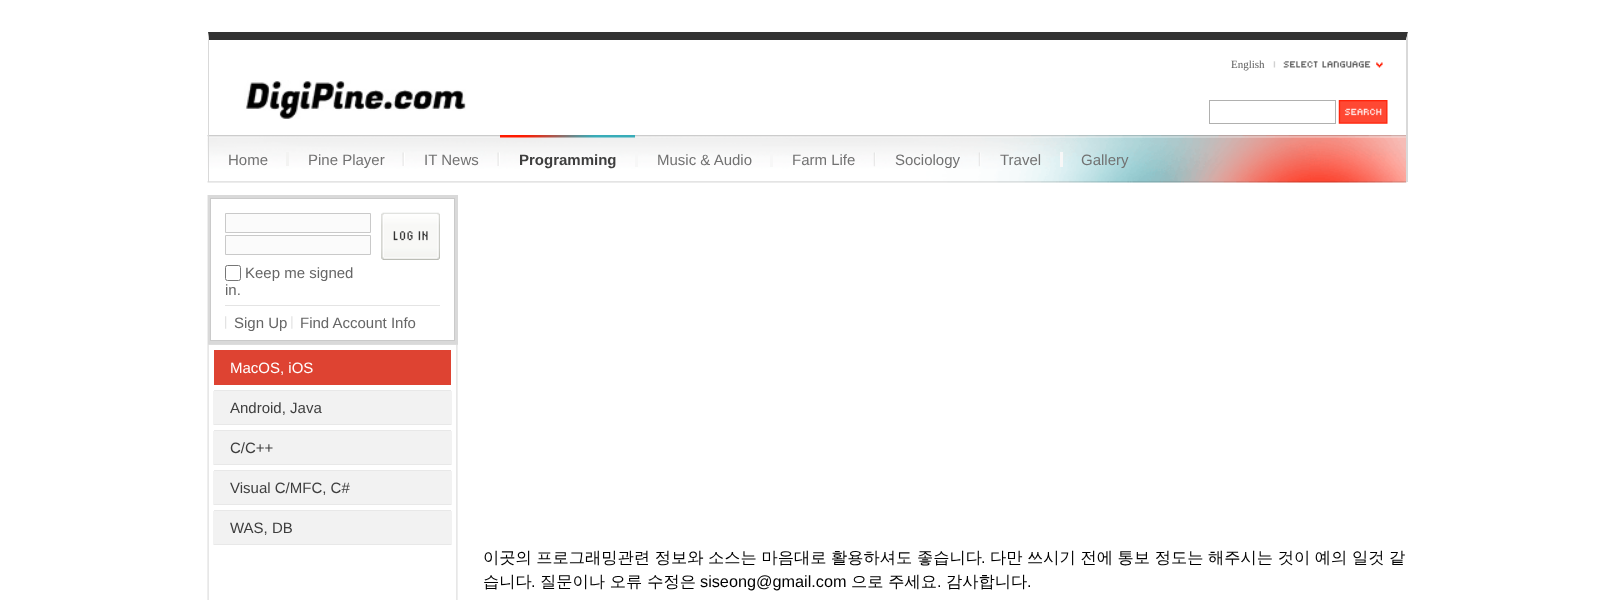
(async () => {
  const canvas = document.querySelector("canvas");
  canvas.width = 1614;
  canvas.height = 600;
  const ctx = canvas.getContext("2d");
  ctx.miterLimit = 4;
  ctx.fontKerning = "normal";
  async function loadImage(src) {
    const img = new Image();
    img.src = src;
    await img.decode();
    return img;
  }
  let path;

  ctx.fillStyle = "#ffffff";
  ctx.fillRect(0, 0, 1614, 600);
  ctx.drawImage(await loadImage("img/1.png"), 207, 135, 1200, 48);
  ctx.fillStyle = "#323232";
  path = new Path2D("M208 32H1408L1406 40H209Z");
  ctx.fill(path);
  ctx.fillStyle = "#d9d9d9";
  path = new Path2D("M1408 32V182H1406V40Z");
  ctx.fill(path);
  path = new Path2D("M208 182V32L209 40V182Z");
  ctx.fill(path);
  ctx.drawImage(await loadImage("img/2.png"), 1273, 61, 110, 7);
  ctx.drawImage(await loadImage("img/3.png"), 244, 80, 222, 39);
  ctx.strokeStyle = "#b0b0af";
  ctx.strokeRect(1209.5, 100.5, 126, 23);
  ctx.drawImage(await loadImage("img/4.png"), 1338, 100, 50, 24);
  ctx.fillStyle = "#f3f3f2";
  ctx.fillRect(286, 152, 3, 14);
  ctx.drawImage(await loadImage("img/5.png"), 402, 152, 3, 14);
  ctx.drawImage(await loadImage("img/6.png"), 497, 152, 3, 14);
  ctx.drawImage(await loadImage("img/7.png"), 500, 135, 135, 3);
  ctx.fillStyle = "#f7f7f7";
  ctx.fillRect(635, 152, 3, 15);
  ctx.fillRect(770, 152, 3, 15);
  ctx.drawImage(await loadImage("img/8.png"), 873, 152, 3, 15);
  ctx.drawImage(await loadImage("img/9.png"), 978, 152, 3, 15);
  ctx.fillRect(1060, 152, 3, 15);
  ctx.drawImage(await loadImage("img/10.png"), 207, 195, 251, 405);
  ctx.strokeStyle = "#d9d9d9";
  ctx.lineWidth = 3;
  ctx.strokeRect(209.5, 196.5, 247, 146);
  ctx.strokeStyle = "#cacaca";
  ctx.lineWidth = 1;
  ctx.strokeRect(210.5, 198.5, 244, 142);
  ctx.drawImage(await loadImage("img/11.png"), 381, 212, 59, 48);
  ctx.fillStyle = "#fbfbfb";
  ctx.beginPath();
  ctx.rect(225.5, 213.5, 145, 19);
  ctx.fill();
  ctx.strokeStyle = "#c9c9c9";
  ctx.stroke();
  ctx.beginPath();
  ctx.rect(225.5, 235.5, 145, 19);
  ctx.fill();
  ctx.stroke();
  ctx.beginPath();
  ctx.roundRect(225.5, 265.5, 15, 15, 2);
  ctx.strokeStyle = "#767676";
  ctx.stroke();
  ctx.fillStyle = "#e4e4e4";
  ctx.fillRect(225, 305, 215, 1);
  ctx.drawImage(await loadImage("img/12.png"), 225, 316, 2, 13);
  ctx.drawImage(await loadImage("img/13.png"), 291, 316, 2, 13);
  for (const [x, y, w, h, color] of [
    [208, 344, 250, 1, "#dddddd"],
    [214, 350, 237, 35, "#de4332"],
    [213, 391, 239, 34, "#f2f2f2"],
    [214, 390, 237, 1, "#e8e8e8"],
    [214, 424, 237, 1, "#e8e8e8"],
    [213, 431, 239, 34, "#f2f2f2"],
    [214, 430, 237, 1, "#e8e8e8"],
    [214, 464, 237, 1, "#e8e8e8"],
    [213, 471, 239, 34, "#f2f2f2"],
    [214, 470, 237, 1, "#e8e8e8"],
    [214, 504, 237, 1, "#e8e8e8"],
    [213, 511, 239, 34, "#f2f2f2"],
    [214, 510, 237, 1, "#e8e8e8"],
    [214, 544, 237, 1, "#e8e8e8"],
  ]) {
    ctx.fillStyle = color;
    ctx.fillRect(x, y, w, h);
  }
  ctx.font = "11px Liberation Serif";
  ctx.fillStyle = "#5c5c5c";
  ctx.fillText("English", 1231, 68);
  ctx.font = "15px Liberation Sans";
  ctx.fillStyle = "#727272";
  for (const [text, x, y] of [
    ["Home", 228, 165],
    ["Pine Player", 308, 165],
    ["IT News", 424, 165],
  ]) {
    ctx.fillText(text, x, y);
  }
  ctx.font = "bold 15px Liberation Sans";
  ctx.fillStyle = "#3e3e3e";
  ctx.fillText("Programming", 519, 165);
  ctx.font = "15px Liberation Sans";
  ctx.fillStyle = "#727272";
  for (const [text, x, y] of [
    ["Music & Audio", 657, 165],
    ["Farm Life", 792, 165],
    ["Sociology", 895, 165],
    ["Travel", 1000, 165],
    ["Gallery", 1081, 165],
  ]) {
    ctx.fillText(text, x, y);
  }
  ctx.fillStyle = "#666666";
  for (const [text, x, y] of [
    ["Keep me signed", 245, 278],
    ["in.", 225, 295],
    ["Sign Up", 234, 328],
    ["Find Account Info", 300, 328],
  ]) {
    ctx.fillText(text, x, y);
  }
  ctx.fillStyle = "#ffffff";
  ctx.fillText("MacOS, iOS", 230, 373);
  ctx.fillStyle = "#3e3e3e";
  for (const [text, x, y] of [
    ["Android, Java", 230, 413],
    ["C/C++", 230, 453],
    ["Visual C/MFC, C#", 230, 493],
    ["WAS, DB", 230, 533],
  ]) {
    ctx.fillText(text, x, y);
  }
  ctx.wordSpacing = "-0.25px";
  ctx.font = "500 16.25px WenQuanYi Zen Hei";
  ctx.fillStyle = "#000000";
  ctx.fillText("이곳의 프로그래밍관련 정보와 소스는 마음대로 활용하셔도 좋습니다", 483, 563);
  ctx.wordSpacing = "0px";
  ctx.font = "16.25px Liberation Sans";
  ctx.fillText(".", 981, 563);
  ctx.wordSpacing = "-0.25px";
  ctx.font = "500 16.25px WenQuanYi Zen Hei";
  ctx.fillText("다만 쓰시기 전에 통보 정도는 해주시는 것이 예의 일것 같", 990, 563);
  ctx.wordSpacing = "0px";
  ctx.fillText("습니다", 483, 587);
  ctx.font = "16.25px Liberation Sans";
  ctx.fillText(".", 531, 587);
  ctx.font = "500 16.25px WenQuanYi Zen Hei";
  ctx.fillText("질문이나 오류 수정은", 540, 587);
  ctx.font = "16.25px Liberation Sans";
  ctx.fillText("siseong@gmail.com", 700, 587);
  ctx.font = "500 16.25px WenQuanYi Zen Hei";
  ctx.fillText("으로 주세요", 851, 587);
  ctx.font = "16.25px Liberation Sans";
  ctx.fillText(".", 937, 587);
  ctx.font = "500 16.25px WenQuanYi Zen Hei";
  ctx.fillText("감사합니다", 946, 587);
  ctx.font = "16.25px Liberation Sans";
  ctx.fillText(".", 1027, 587);
})();
